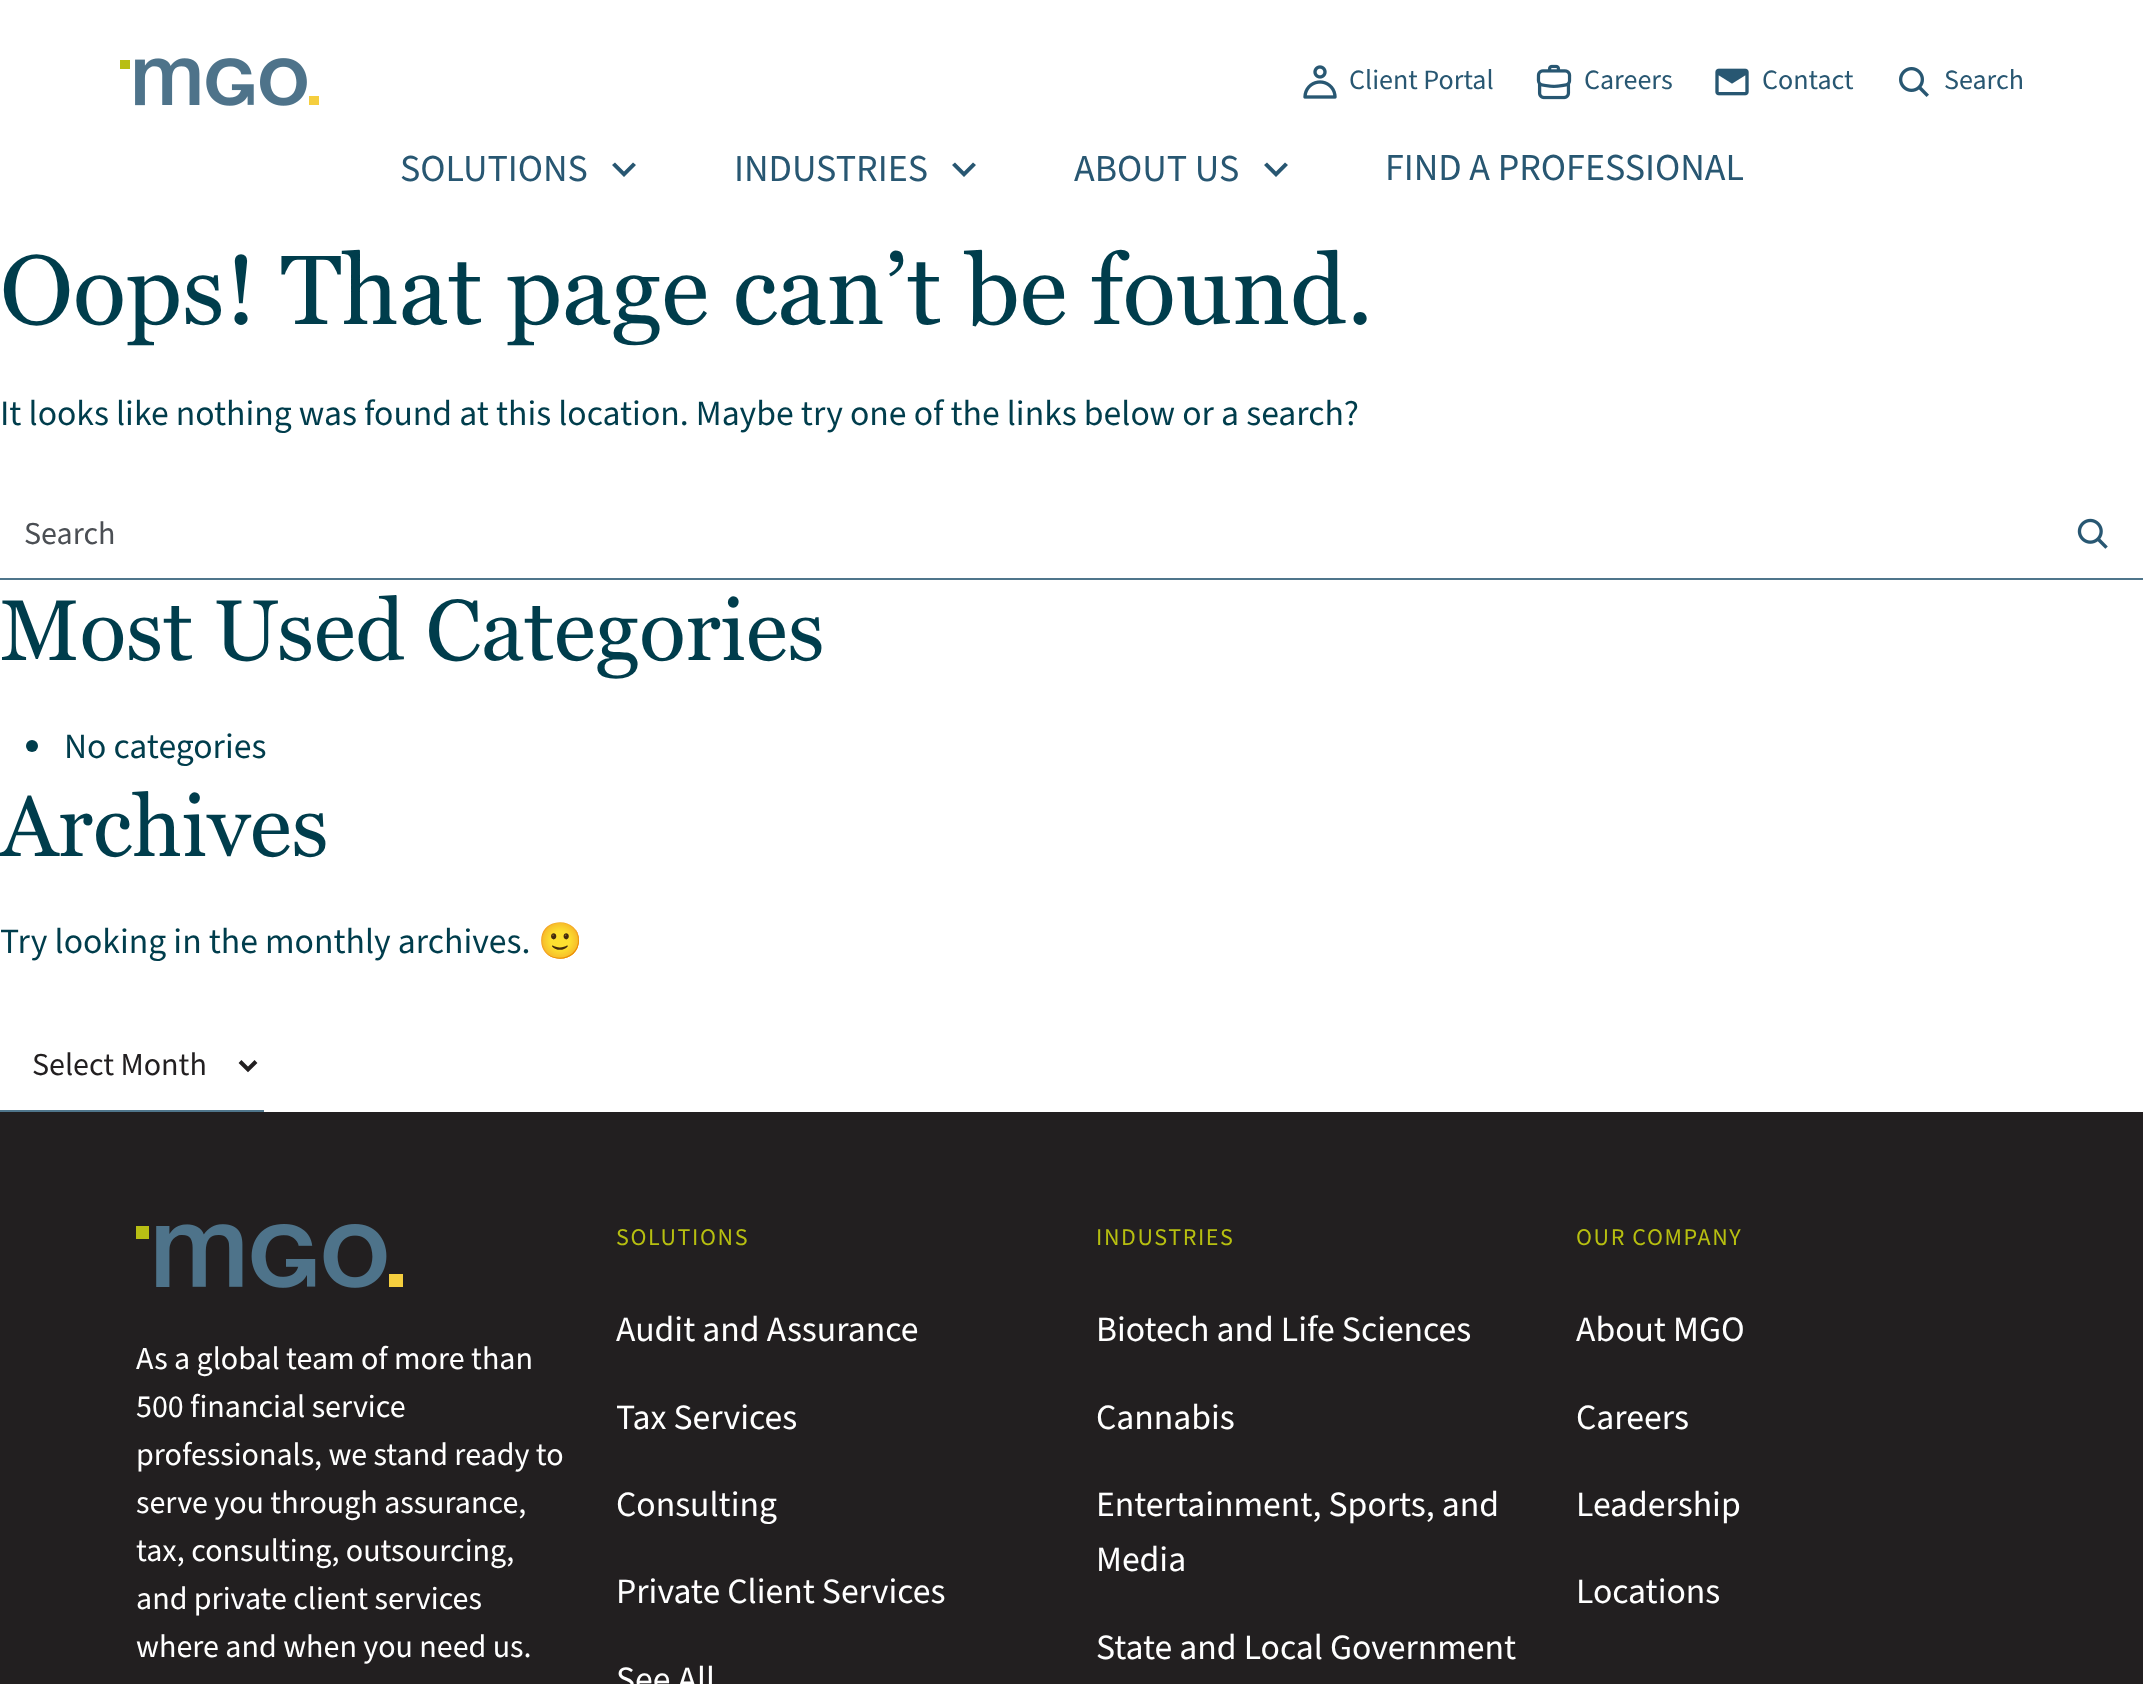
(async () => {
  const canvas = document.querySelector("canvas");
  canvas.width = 2143;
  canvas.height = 1684;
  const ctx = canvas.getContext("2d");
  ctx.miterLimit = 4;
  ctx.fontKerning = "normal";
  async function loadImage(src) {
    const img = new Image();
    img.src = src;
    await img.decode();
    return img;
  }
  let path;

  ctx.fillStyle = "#ffffff";
  ctx.fillRect(0, 0, 2143, 1684);
  ctx.drawImage(await loadImage("img/1.png"), 120, 58, 199, 48);
  ctx.drawImage(await loadImage("img/2.png"), 1303, 65, 34, 34);
  ctx.drawImage(await loadImage("img/3.png"), 1536, 64, 36, 36);
  ctx.drawImage(await loadImage("img/4.png"), 1715, 68, 34, 28);
  ctx.drawImage(await loadImage("img/5.png"), 1899, 67, 30, 30);
  ctx.fillStyle = "#285772";
  path = new Path2D("M633 162.5L624 171.5L615 162.5L612 165L624 177L636 165Z");
  ctx.fill(path);
  path = new Path2D("M973 162.5L964 171.5L955 162.5L952 165L964 177L976 165Z");
  ctx.fill(path);
  path = new Path2D("M1285 162.5L1276 171.5L1267 162.5L1264 165L1276 177L1288 165Z");
  ctx.fill(path);
  ctx.fillStyle = "#4f758b";
  ctx.fillRect(0, 578, 2143, 2);
  ctx.drawImage(await loadImage("img/6.png"), 2077, 518, 31, 31);
  ctx.fillStyle = "#003d4c";
  ctx.beginPath();
  ctx.arc(32, 746, 6, 0, Math.PI * 2);
  ctx.fill();
  ctx.fillStyle = "#4f758b";
  ctx.fillRect(0, 1110, 264, 2);
  path = new Path2D("M240 1061.5L248 1069.5L256 1061.5");
  ctx.strokeStyle = "#221f20";
  ctx.lineWidth = 4;
  ctx.stroke(path);
  ctx.fillStyle = "#221f20";
  ctx.fillRect(0, 1112, 2143, 572);
  ctx.drawImage(await loadImage("img/7.png"), 136, 1224, 267, 64);
  ctx.font = "28px Source Sans Pro";
  ctx.fillStyle = "#285772";
  for (const [text, x, y] of [
    ["Client Portal", 1349, 89],
    ["Careers", 1584, 89],
    ["Contact", 1762, 89],
    ["Search", 1944, 89],
  ]) {
    ctx.fillText(text, x, y);
  }
  ctx.font = "38px Source Sans Pro";
  for (const [text, x, y] of [
    ["SOLUTIONS", 400, 181],
    ["INDUSTRIES", 734, 181],
    ["ABOUT US", 1074, 181],
    ["FIND A PROFESSIONAL", 1385, 180],
  ]) {
    ctx.fillText(text, x, y);
  }
  ctx.font = "98.25px Georgia";
  ctx.fillStyle = "#003d4c";
  ctx.fillText("Oops! That page can’t be found.", 0, 324);
  ctx.font = "35.65px Source Sans Pro";
  ctx.fillText("It looks like nothing was found at this location. Maybe try one of the links below or a search?", 0, 425);
  ctx.font = "32px Source Sans Pro";
  ctx.fillStyle = "#4b4f54";
  ctx.fillText("Search", 24, 544);
  ctx.font = "86px Georgia";
  ctx.fillStyle = "#003d4c";
  ctx.fillText("Most Used Categories", 0, 660);
  ctx.font = "35.65px Source Sans Pro";
  ctx.fillText("No categories", 64, 758);
  ctx.font = "86px Georgia";
  ctx.fillText("Archives", 0, 856);
  ctx.font = "35.65px Source Sans Pro";
  ctx.fillText("Try looking in the monthly archives.", 0, 953);
  ctx.font = "35.65px Noto Color Emoji";
  ctx.fillText("🙂", 538, 953);
  ctx.font = "32px Source Sans Pro";
  ctx.fillStyle = "#221f20";
  ctx.fillText("Select Month", 32, 1075);
  ctx.fillStyle = "#ffffff";
  for (const [text, x, y] of [
    ["As a global team of more than", 136, 1369],
    ["500 financial service", 136, 1417],
    ["professionals, we stand ready to", 136, 1465],
    ["serve you through assurance,", 136, 1513],
    ["tax, consulting, outsourcing,", 136, 1561],
    ["and private client services", 136, 1609],
    ["where and when you need us.", 136, 1657],
  ]) {
    ctx.fillText(text, x, y);
  }
  ctx.letterSpacing = "1.6px";
  ctx.font = "24px Source Sans Pro";
  ctx.fillStyle = "#b7bf10";
  ctx.fillText("SOLUTIONS", 616, 1245);
  ctx.letterSpacing = "0px";
  ctx.font = "35.65px Source Sans Pro";
  ctx.fillStyle = "#ffffff";
  for (const [text, x, y] of [
    ["Audit and Assurance", 616, 1341],
    ["Tax Services", 616, 1429],
    ["Consulting", 616, 1516],
    ["Private Client Services", 616, 1603],
    ["See All", 616, 1691],
  ]) {
    ctx.fillText(text, x, y);
  }
  ctx.letterSpacing = "1.6px";
  ctx.font = "24px Source Sans Pro";
  ctx.fillStyle = "#b7bf10";
  ctx.fillText("INDUSTRIES", 1096, 1245);
  ctx.letterSpacing = "0px";
  ctx.font = "35.65px Source Sans Pro";
  ctx.fillStyle = "#ffffff";
  for (const [text, x, y] of [
    ["Biotech and Life Sciences", 1096, 1341],
    ["Cannabis", 1096, 1429],
    ["Entertainment, Sports, and", 1096, 1516],
    ["Media", 1096, 1571],
    ["State and Local Government", 1096, 1659],
  ]) {
    ctx.fillText(text, x, y);
  }
  ctx.letterSpacing = "1.6px";
  ctx.font = "24px Source Sans Pro";
  ctx.fillStyle = "#b7bf10";
  ctx.fillText("OUR COMPANY", 1576, 1245);
  ctx.letterSpacing = "0px";
  ctx.font = "35.65px Source Sans Pro";
  ctx.fillStyle = "#ffffff";
  for (const [text, x, y] of [
    ["About MGO", 1576, 1341],
    ["Careers", 1576, 1429],
    ["Leadership", 1576, 1516],
    ["Locations", 1576, 1603],
  ]) {
    ctx.fillText(text, x, y);
  }
})();
